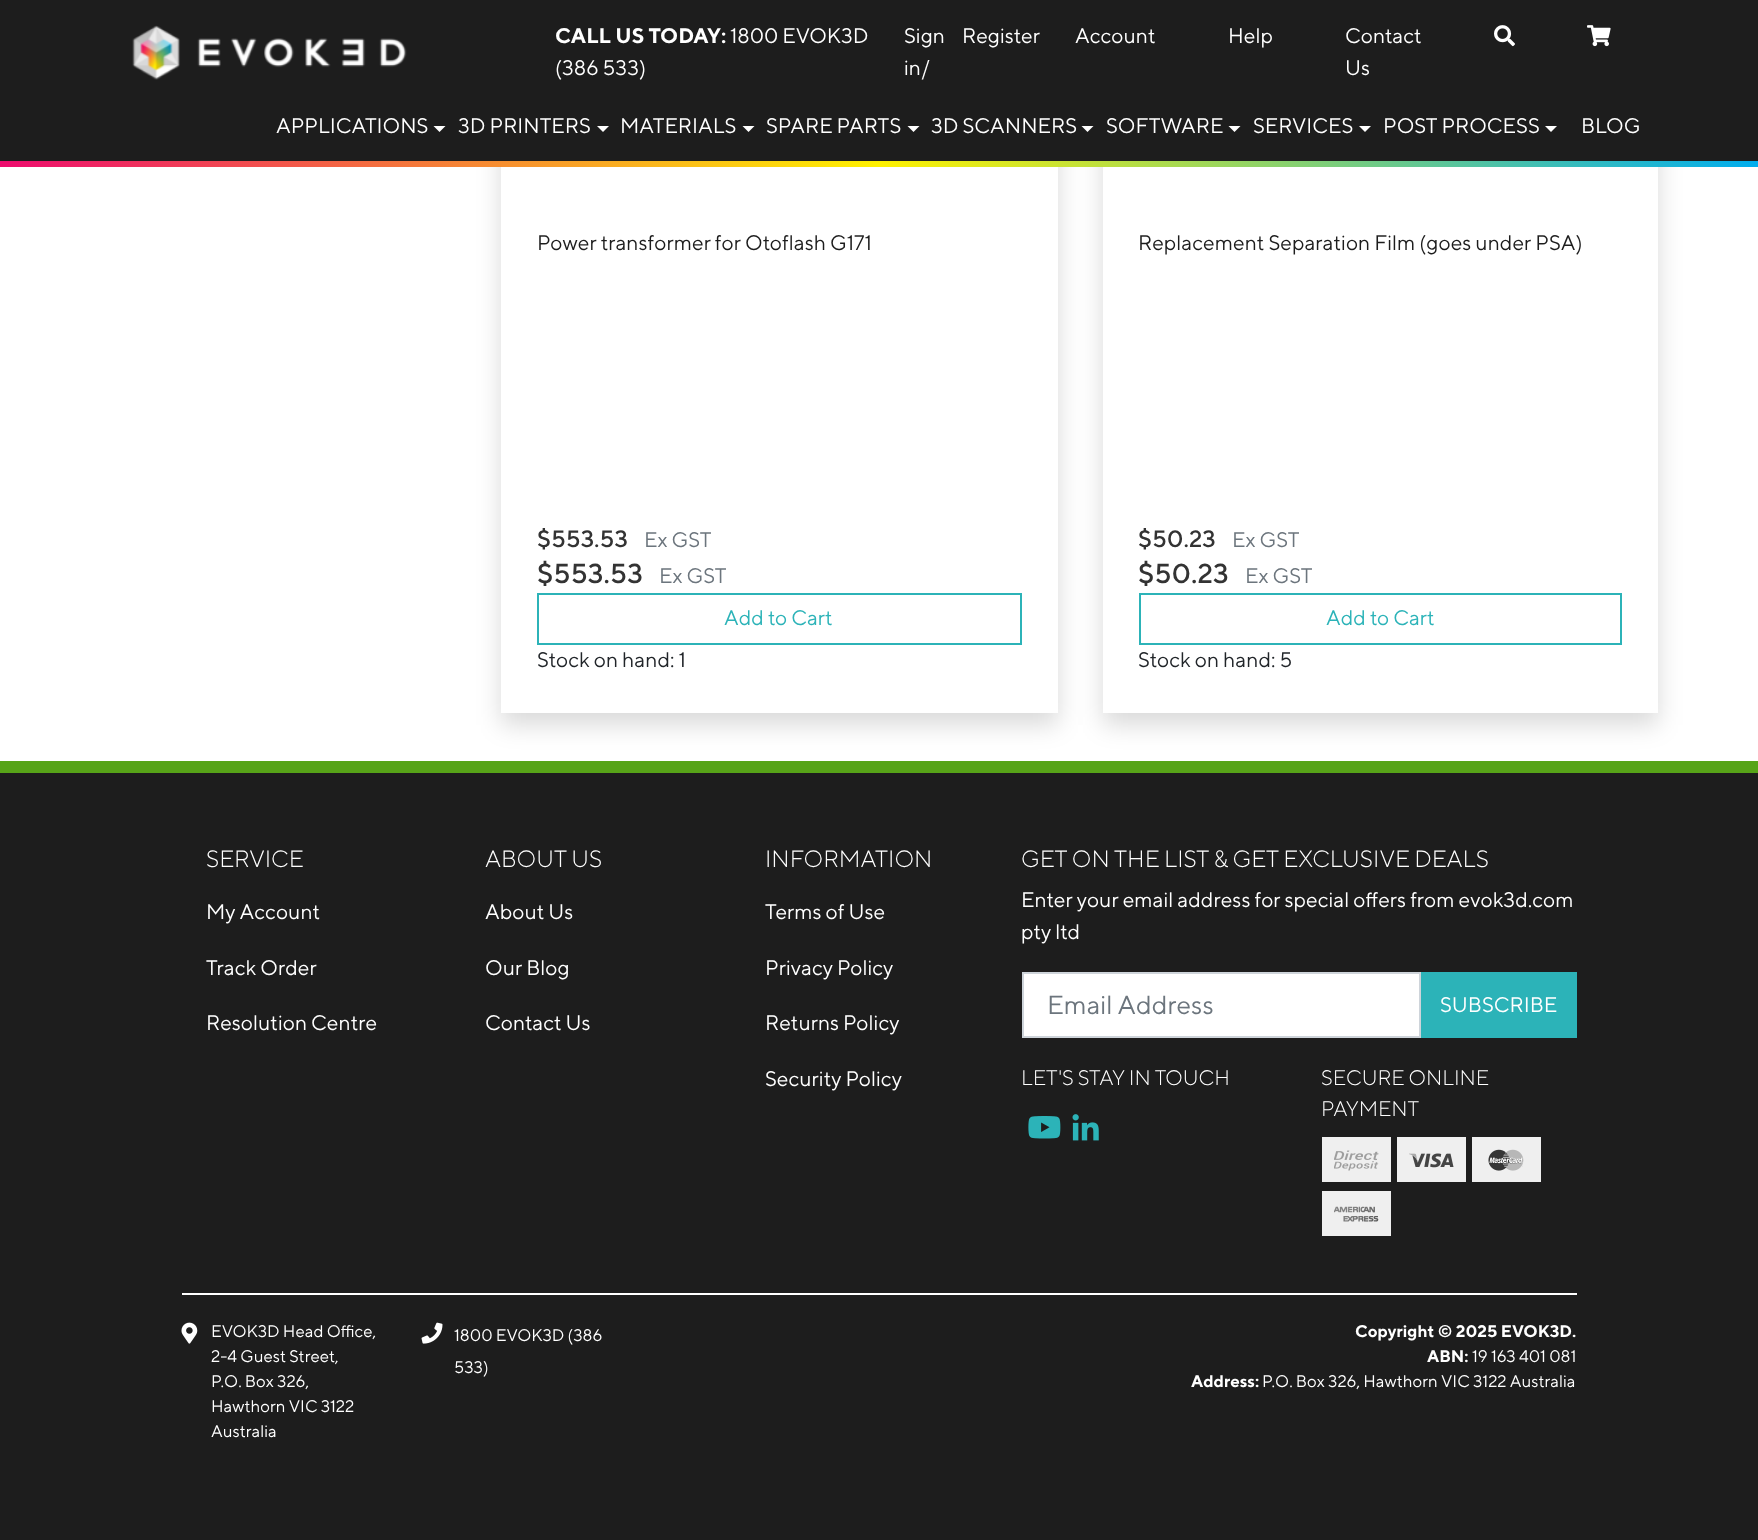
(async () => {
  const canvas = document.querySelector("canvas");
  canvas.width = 1758;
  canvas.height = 1540;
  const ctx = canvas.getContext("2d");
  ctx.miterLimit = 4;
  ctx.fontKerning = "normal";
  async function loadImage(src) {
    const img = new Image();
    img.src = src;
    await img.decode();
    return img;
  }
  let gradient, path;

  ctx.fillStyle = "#ffffff";
  ctx.fillRect(0, 0, 1758, 1540);
  ctx.fillStyle = "#57a418";
  ctx.fillRect(0, 761, 1758, 12);
  ctx.fillStyle = "rgba(0, 0, 0, 0.15)";
  ctx.filter = "blur(12px)";
  ctx.beginPath();
  ctx.rect(501, -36, 557, 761);
  ctx.fill();
  ctx.filter = "none";
  ctx.filter = "blur(12px)";
  ctx.beginPath();
  ctx.rect(1103, -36, 555, 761);
  ctx.fill();
  ctx.filter = "none";
  ctx.fillStyle = "#1d1d1d";
  ctx.fillRect(0, 0, 1758, 161);
  ctx.drawImage(await loadImage("img/1.png"), 132, 25, 275, 55);
  ctx.drawImage(await loadImage("img/2.png"), 1494, 25, 21, 22);
  ctx.drawImage(await loadImage("img/3.png"), 1587, 25, 24, 22);
  ctx.fillStyle = "#ffffff";
  path = new Path2D("M433.5 126H445.5L439.5 132Z");
  ctx.fill(path);
  path = new Path2D("M597 126H609L603 132Z");
  ctx.fill(path);
  path = new Path2D("M742.5 126H754.5L748.5 132Z");
  ctx.fill(path);
  path = new Path2D("M907.5 126H919.5L913.5 132Z");
  ctx.fill(path);
  path = new Path2D("M1081.5 126H1093.5L1087.5 132Z");
  ctx.fill(path);
  path = new Path2D("M1228.5 126H1240.5L1234.5 132Z");
  ctx.fill(path);
  path = new Path2D("M1359 126H1371L1365 132Z");
  ctx.fill(path);
  path = new Path2D("M1545 126H1557L1551 132Z");
  ctx.fill(path);
  gradient = ctx.createLinearGradient(0, 164, 1758, 163);
  gradient.addColorStop(0, "#ec0c6e");
  gradient.addColorStop(0.5, "#fff100");
  gradient.addColorStop(1, "#00adee");
  ctx.fillStyle = gradient;
  ctx.fillRect(0, 161, 1758, 6);
  ctx.fillStyle = "#ffffff";
  ctx.fillRect(501, 167, 557, 546);
  ctx.strokeStyle = "#2cb3b8";
  ctx.lineWidth = 2;
  ctx.strokeRect(538, 594, 483, 50);
  ctx.fillRect(1103, 167, 555, 546);
  ctx.strokeRect(1140, 594, 481, 50);
  ctx.fillStyle = "#1d1d1d";
  ctx.fillRect(0, 773, 1758, 767);
  ctx.fillStyle = "#ffffff";
  ctx.beginPath();
  ctx.rect(1023, 973, 397, 64);
  ctx.fill();
  ctx.strokeStyle = "#ced4da";
  ctx.stroke();
  ctx.fillStyle = "#2cb3b8";
  ctx.fillRect(1421, 972, 156, 66);
  ctx.drawImage(await loadImage("img/4.png"), 1028, 1116, 33, 23);
  ctx.drawImage(await loadImage("img/5.png"), 1072, 1114, 27, 27);
  ctx.fillStyle = "#efefef";
  ctx.fillRect(1322, 1137, 69, 45);
  ctx.drawImage(await loadImage("img/6.png"), 1334, 1150, 45, 21);
  ctx.fillRect(1397, 1137, 69, 45);
  ctx.drawImage(await loadImage("img/7.png"), 1409, 1153, 45, 15);
  ctx.fillRect(1472, 1137, 69, 45);
  ctx.drawImage(await loadImage("img/8.png"), 1488, 1149, 36, 22);
  ctx.fillRect(1322, 1191, 69, 45);
  ctx.drawImage(await loadImage("img/9.png"), 1334, 1206, 45, 16);
  ctx.fillStyle = "#ffffff";
  ctx.fillRect(182, 1293, 1395, 2);
  ctx.drawImage(await loadImage("img/10.png"), 181, 1322, 17, 22);
  ctx.drawImage(await loadImage("img/11.png"), 421, 1322, 22, 22);
  ctx.font = "bold 21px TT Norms";
  ctx.fillText("CALL US TODAY:", 555, 43);
  ctx.font = "21px TT Norms";
  for (const [text, x, y] of [
    ["1800 EVOK3D", 730, 43],
    ["(386 533)", 555, 75],
    ["Sign", 904, 43],
    ["in/", 904, 75],
    ["Register", 962, 43],
    ["Account", 1075, 43],
    ["Help", 1228, 43],
    ["Contact", 1345, 43],
    ["Us", 1345, 75],
    ["APPLICATIONS", 276, 133],
    ["3D PRINTERS", 458, 133],
    ["MATERIALS", 620, 133],
    ["SPARE PARTS", 766, 133],
    ["3D SCANNERS", 931, 133],
    ["SOFTWARE", 1106, 133],
    ["SERVICES", 1253, 133],
    ["POST PROCESS", 1383, 133],
    ["BLOG", 1581, 133],
  ]) {
    ctx.fillText(text, x, y);
  }
  ctx.fillStyle = "#1d1d1d";
  ctx.fillText("Power transformer for Otoflash G171", 537, 250);
  ctx.font = "500 23.6px TT Norms";
  ctx.fillStyle = "#333333";
  ctx.fillText("$553.53", 537, 547);
  ctx.font = "21px TT Norms";
  ctx.fillStyle = "#6c757d";
  ctx.fillText("Ex GST", 644, 547);
  ctx.font = "500 27.5px TT Norms";
  ctx.fillStyle = "#333333";
  ctx.fillText("$553.53", 537, 583);
  ctx.font = "21px TT Norms";
  ctx.fillStyle = "#6c757d";
  ctx.fillText("Ex GST", 659, 583);
  ctx.fillStyle = "#2cb3b8";
  ctx.fillText("Add to Cart", 724, 625);
  ctx.fillStyle = "#212529";
  ctx.fillText("Stock on hand: 1", 537, 667);
  ctx.fillStyle = "#1d1d1d";
  ctx.fillText("Replacement Separation Film (goes under PSA)", 1138, 250);
  ctx.font = "500 23.6px TT Norms";
  ctx.fillStyle = "#333333";
  ctx.fillText("$50.23", 1138, 547);
  ctx.font = "21px TT Norms";
  ctx.fillStyle = "#6c757d";
  ctx.fillText("Ex GST", 1232, 547);
  ctx.font = "500 27.5px TT Norms";
  ctx.fillStyle = "#333333";
  ctx.fillText("$50.23", 1138, 583);
  ctx.font = "21px TT Norms";
  ctx.fillStyle = "#6c757d";
  ctx.fillText("Ex GST", 1245, 583);
  ctx.fillStyle = "#2cb3b8";
  ctx.fillText("Add to Cart", 1326, 625);
  ctx.fillStyle = "#212529";
  ctx.fillText("Stock on hand: 5", 1138, 667);
  ctx.font = "300 23.6px TT Norms";
  ctx.fillStyle = "#ffffff";
  ctx.fillText("SERVICE", 206, 867);
  ctx.font = "21px TT Norms";
  for (const [text, x, y] of [
    ["My Account", 206, 919],
    ["Track Order", 206, 975],
    ["Resolution Centre", 206, 1030],
  ]) {
    ctx.fillText(text, x, y);
  }
  ctx.font = "300 23.6px TT Norms";
  ctx.fillText("ABOUT US", 485, 867);
  ctx.font = "21px TT Norms";
  for (const [text, x, y] of [
    ["About Us", 485, 919],
    ["Our Blog", 485, 975],
    ["Contact Us", 485, 1030],
  ]) {
    ctx.fillText(text, x, y);
  }
  ctx.font = "300 23.6px TT Norms";
  ctx.fillText("INFORMATION", 765, 867);
  ctx.font = "21px TT Norms";
  for (const [text, x, y] of [
    ["Terms of Use", 765, 919],
    ["Privacy Policy", 765, 975],
    ["Returns Policy", 765, 1030],
    ["Security Policy", 765, 1086],
  ]) {
    ctx.fillText(text, x, y);
  }
  ctx.font = "300 23.6px TT Norms";
  ctx.fillText("GET ON THE LIST & GET EXCLUSIVE DEALS", 1021, 867);
  ctx.font = "21px TT Norms";
  ctx.fillText("Enter your email address for special offers from evok3d.com", 1021, 907);
  ctx.fillText("pty ltd", 1021, 939);
  ctx.font = "26.25px TT Norms";
  ctx.fillStyle = "#6c757d";
  ctx.fillText("Email Address", 1047, 1014);
  ctx.font = "21px TT Norms";
  ctx.fillStyle = "#ffffff";
  ctx.fillText("SUBSCRIBE", 1440, 1012);
  ctx.font = "300 21px TT Norms";
  for (const [text, x, y] of [
    ["LET'S STAY IN TOUCH", 1021, 1085],
    ["SECURE ONLINE", 1321, 1085],
    ["PAYMENT", 1321, 1116],
  ]) {
    ctx.fillText(text, x, y);
  }
  ctx.font = "16.75px TT Norms";
  for (const [text, x, y] of [
    ["EVOK3D Head Office,", 211, 1337],
    ["2-4 Guest Street,", 211, 1362],
    ["P.O. Box 326,", 211, 1387],
    ["Hawthorn VIC 3122", 211, 1412],
    ["Australia", 211, 1437],
    ["1800 EVOK3D (386", 454, 1341],
    ["533)", 454, 1373],
  ]) {
    ctx.fillText(text, x, y);
  }
  ctx.font = "bold 16.75px TT Norms";
  ctx.fillText("Copyright © 2025 EVOK3D.", 1355, 1337);
  ctx.fillText("ABN:", 1427, 1362);
  ctx.font = "16.75px TT Norms";
  ctx.fillText("19 163 401 081", 1472, 1362);
  ctx.font = "bold 16.75px TT Norms";
  ctx.fillText("Address:", 1191, 1387);
  ctx.font = "16.75px TT Norms";
  ctx.fillText("P.O. Box 326, Hawthorn VIC 3122 Australia", 1262, 1387);
})();
